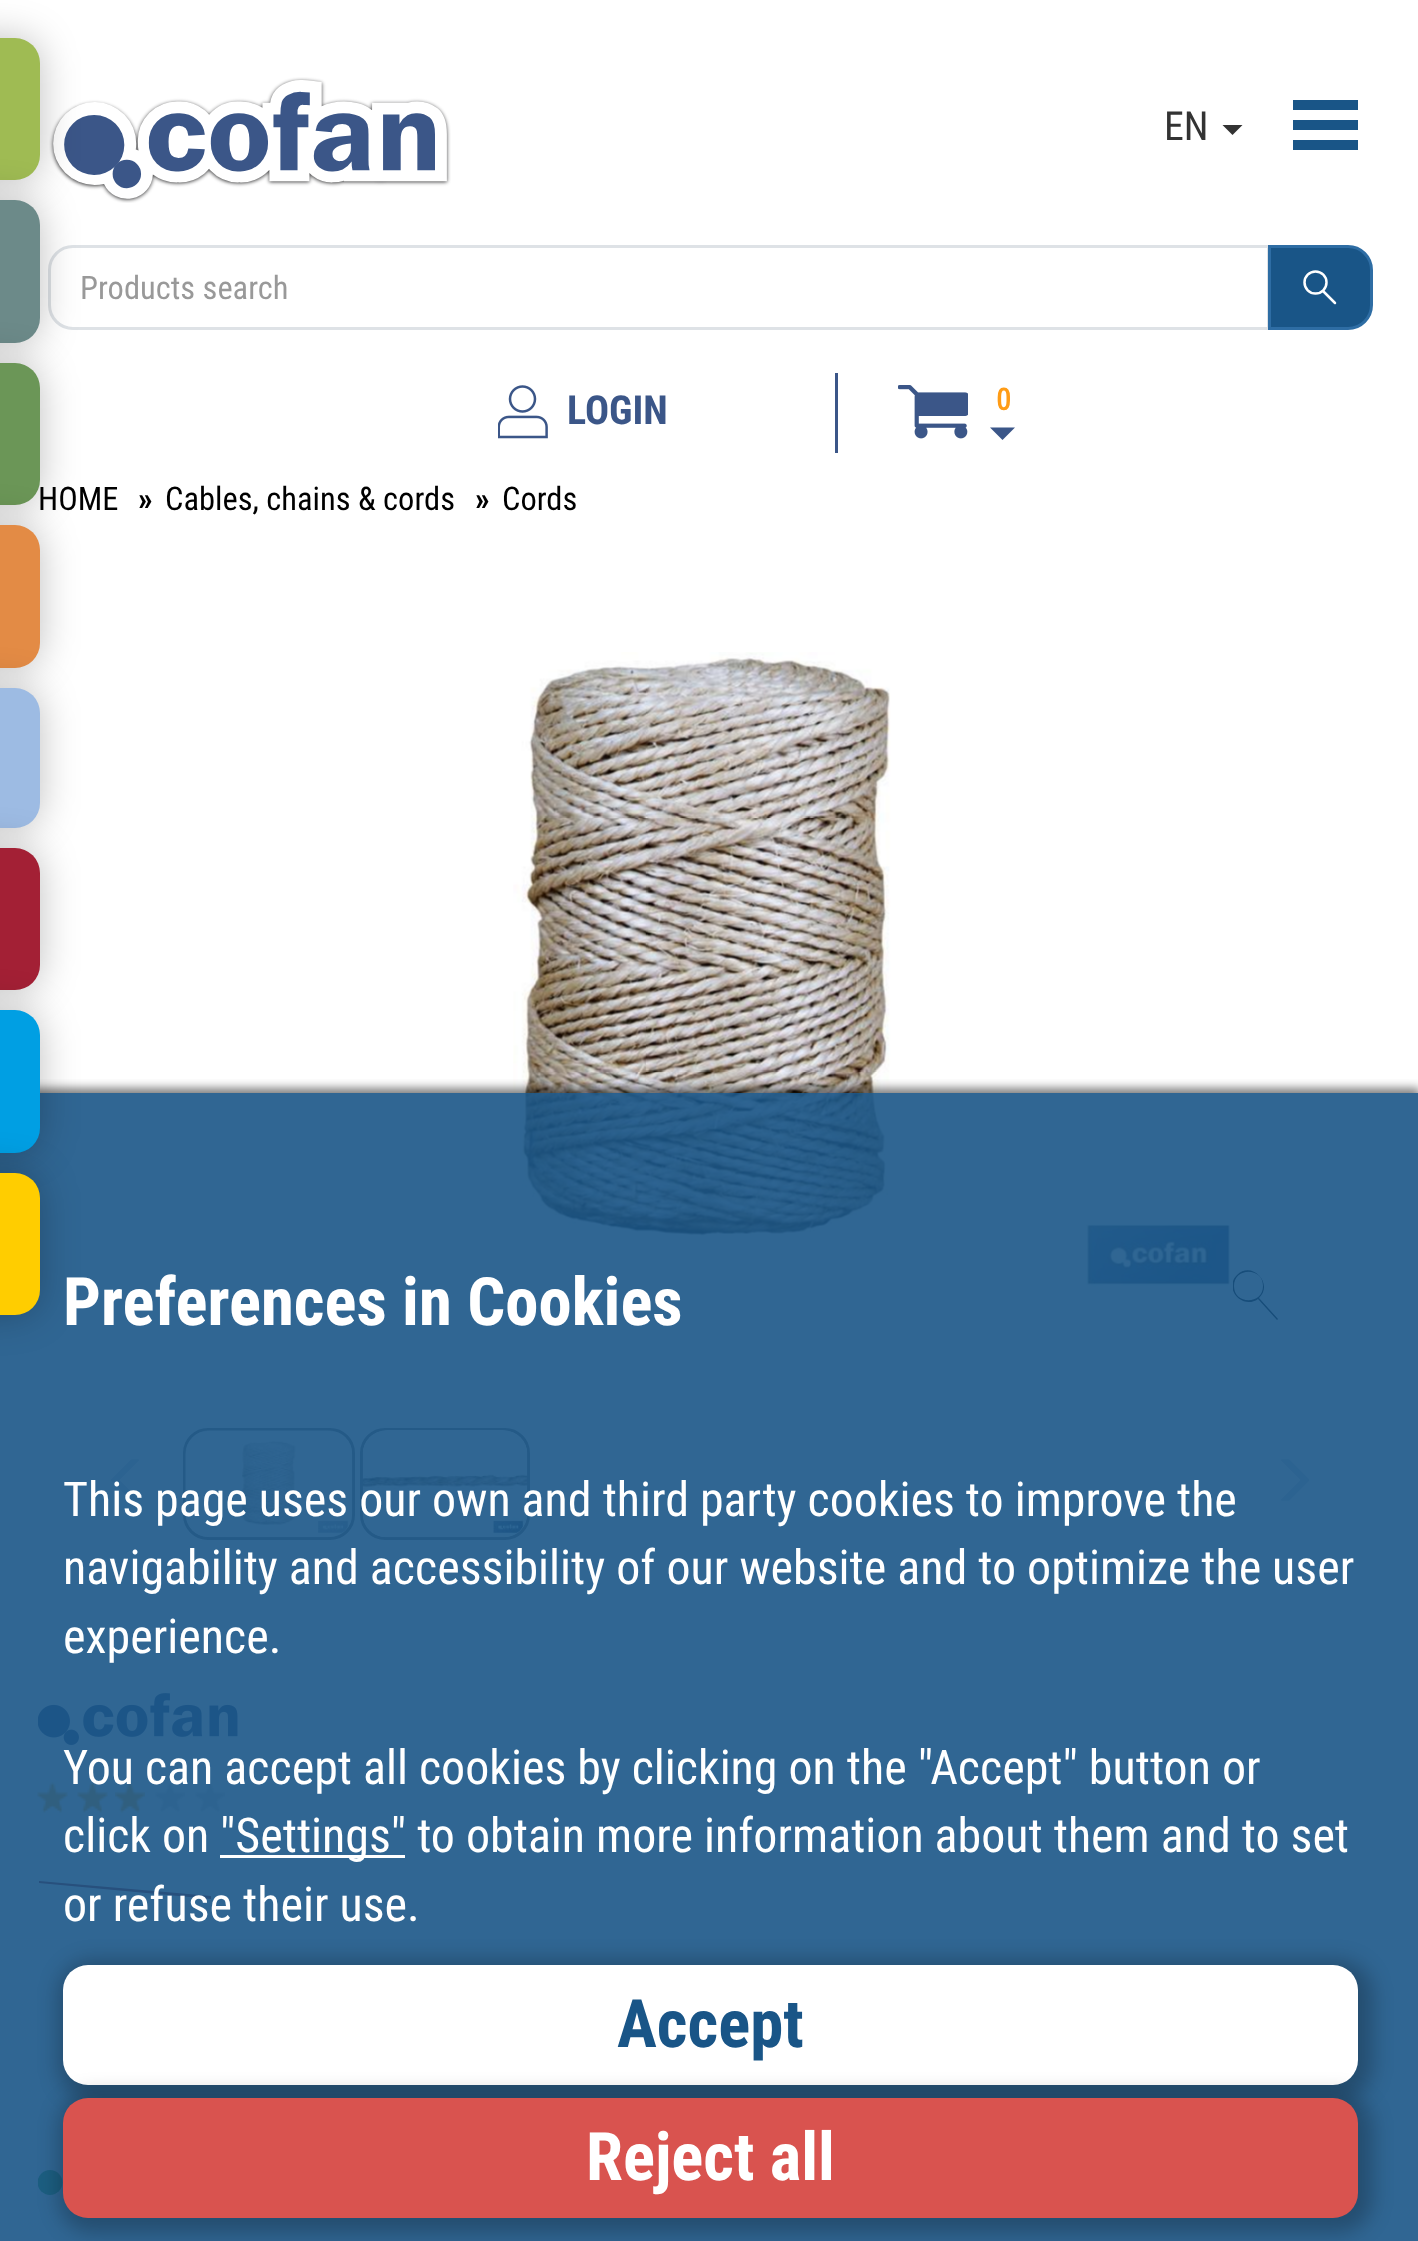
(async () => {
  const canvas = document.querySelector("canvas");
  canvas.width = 1418;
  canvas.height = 2241;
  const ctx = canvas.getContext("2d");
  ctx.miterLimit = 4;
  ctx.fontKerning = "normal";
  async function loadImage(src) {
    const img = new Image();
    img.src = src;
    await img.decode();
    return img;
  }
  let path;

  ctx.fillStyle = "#ffffff";
  ctx.fillRect(0, 0, 1418, 2241);
  ctx.drawImage(await loadImage("img/1.png"), 49, 77, 402, 126);
  ctx.fillStyle = "#333333";
  path = new Path2D("M1222.5 125H1242.5L1232.5 135Z");
  ctx.fill(path);
  for (const [x, y, w, h, color] of [
    [1293, 100, 65, 10, "#195587"],
    [1293, 120, 65, 10, "#195587"],
    [1293, 140, 65, 10, "#195587"],
  ]) {
    ctx.fillStyle = color;
    ctx.fillRect(x, y, w, h);
  }
  ctx.beginPath();
  ctx.roundRect(49.5, 246.5, 1219, 82, [23.5, 0, 0, 23.5]);
  ctx.strokeStyle = "#dee2e6";
  ctx.lineWidth = 3;
  ctx.stroke();
  ctx.beginPath();
  ctx.roundRect(1269.5, 246.5, 102, 82, [0, 23.5, 23.5, 0]);
  ctx.fill();
  ctx.strokeStyle = "#2e6da4";
  ctx.stroke();
  ctx.beginPath();
  ctx.arc(1315.5, 282.5, 11, 0, Math.PI * 2);
  ctx.strokeStyle = "#ffffff";
  ctx.lineWidth = 2.5;
  ctx.stroke();
  path = new Path2D("M1323 291L1335 303");
  ctx.lineCap = "round";
  ctx.stroke(path);
  ctx.drawImage(await loadImage("img/2.png"), 498, 385, 50, 54);
  ctx.fillStyle = "#3b5688";
  ctx.fillRect(835, 373, 3, 80);
  ctx.drawImage(await loadImage("img/3.png"), 898, 385, 70, 54);
  path = new Path2D("M990 427.5H1015L1002.5 440Z");
  ctx.fill(path);
  ctx.fillStyle = "rgba(0, 0, 0, 0.25)";
  ctx.filter = "blur(19px)";
  ctx.beginPath();
  ctx.roundRect(-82, 38, 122, 142, 25);
  ctx.fill();
  ctx.filter = "none";
  ctx.fillStyle = "#9fbb53";
  ctx.beginPath();
  ctx.roundRect(-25, 38, 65, 142, 25);
  ctx.fill();
  ctx.fillStyle = "rgba(0, 0, 0, 0.25)";
  ctx.filter = "blur(19px)";
  ctx.beginPath();
  ctx.roundRect(-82, 200, 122, 143, 25);
  ctx.fill();
  ctx.filter = "none";
  ctx.fillStyle = "#6c8a89";
  ctx.beginPath();
  ctx.roundRect(-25, 200, 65, 143, 25);
  ctx.fill();
  ctx.fillStyle = "rgba(0, 0, 0, 0.25)";
  ctx.filter = "blur(19px)";
  ctx.beginPath();
  ctx.roundRect(-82, 363, 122, 142, 25);
  ctx.fill();
  ctx.filter = "none";
  ctx.drawImage(await loadImage("img/4.png"), 513, 652, 717, 640);
  ctx.save();
  ctx.beginPath();
  ctx.rect(1233, 1270, 45, 50);
  ctx.clip();
  ctx.fillStyle = "#000000";
  path = new Path2D("M1278 1319L1259 1298C1274 1284 1252 1260 1237 1275C1223 1289 1243 1310 1258 1299L1277 1320ZM1234 1286C1234 1267 1263 1267 1263 1286C1263 1305 1234 1305 1234 1286Z");
  ctx.fill(path);
  ctx.restore();
  ctx.drawImage(await loadImage("img/5.png"), 111, 1459, 29, 42);
  ctx.beginPath();
  ctx.roundRect(184.5, 1429.5, 169, 109, 23.5);
  ctx.strokeStyle = "#848484";
  ctx.lineWidth = 3;
  ctx.stroke();
  ctx.drawImage(await loadImage("img/6.png"), 185, 1430, 168, 108);
  ctx.beginPath();
  ctx.roundRect(361.5, 1429.5, 167, 109, 23.5);
  ctx.stroke();
  ctx.drawImage(await loadImage("img/7.png"), 362, 1430, 166, 108);
  ctx.drawImage(await loadImage("img/8.png"), 1281, 1459, 29, 42);
  ctx.drawImage(await loadImage("img/9.png"), 38, 1693, 200, 52);
  ctx.drawImage(await loadImage("img/10.png"), 37, 1782, 31, 31);
  ctx.drawImage(await loadImage("img/10.png"), 77, 1782, 31, 31);
  ctx.drawImage(await loadImage("img/11.png"), 115, 1782, 30, 31);
  ctx.drawImage(await loadImage("img/12.png"), 155, 1782, 30, 31);
  ctx.drawImage(await loadImage("img/12.png"), 195, 1782, 30, 31);
  ctx.fillStyle = "#9f1e27";
  path = new Path2D("M39 1881L211 1896V1899L39 1883Z");
  ctx.fill(path);
  ctx.save();
  ctx.beginPath();
  ctx.rect(38, 2170, 25, 25);
  ctx.clip();
  ctx.fillStyle = "#39a94a";
  ctx.beginPath();
  ctx.arc(50, 2182.5, 12.5, 0, Math.PI * 2);
  ctx.fill();
  ctx.restore();
  ctx.save();
  ctx.beginPath();
  ctx.rect(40, 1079, 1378, 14);
  ctx.clip();
  ctx.fillStyle = "rgba(0, 0, 0, 0.5)";
  ctx.filter = "blur(5px)";
  ctx.beginPath();
  ctx.rect(0, 1088, 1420, 1150);
  ctx.fill();
  ctx.filter = "none";
  ctx.restore();
  ctx.fillStyle = "rgba(25, 85, 135, 0.9)";
  ctx.fillRect(0, 1093, 1418, 1148);
  ctx.fillStyle = "#ffffff";
  ctx.fillRect(220, 1855, 185, 3);
  ctx.fillStyle = "rgba(0, 0, 0, 0.24)";
  ctx.filter = "blur(10px)";
  ctx.beginPath();
  ctx.roundRect(58, 1960, 1315, 140, 35);
  ctx.fill();
  ctx.filter = "none";
  ctx.fillStyle = "#ffffff";
  ctx.beginPath();
  ctx.roundRect(63, 1965, 1295, 120, 25);
  ctx.fill();
  ctx.fillStyle = "rgba(0, 0, 0, 0.24)";
  ctx.filter = "blur(10px)";
  ctx.beginPath();
  ctx.roundRect(58, 2093, 1315, 140, 35);
  ctx.fill();
  ctx.filter = "none";
  ctx.fillStyle = "#d9534f";
  ctx.beginPath();
  ctx.roundRect(63, 2098, 1295, 120, 25);
  ctx.fill();
  ctx.font = "40px Roboto Condensed";
  ctx.fillStyle = "#333333";
  ctx.fillText("EN", 1164, 140);
  ctx.font = "32.5px Roboto Condensed";
  ctx.fillStyle = "#999999";
  ctx.fillText("Products search", 80, 299);
  ctx.font = "bold 40px Roboto Condensed";
  ctx.fillStyle = "#3b5688";
  ctx.fillText("LOGIN", 567, 424);
  ctx.font = "bold 30px 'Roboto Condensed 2'";
  ctx.fillStyle = "#ff9c16";
  ctx.fillText("0", 996, 410);
  ctx.font = "32.5px Roboto Condensed";
  ctx.fillStyle = "#000000";
  ctx.fillText("HOME", 38, 510);
  ctx.fillStyle = "#6b9657";
  ctx.beginPath();
  ctx.roundRect(-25, 363, 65, 142, 25);
  ctx.fill();
  ctx.fillStyle = "rgba(0, 0, 0, 0.25)";
  ctx.filter = "blur(19px)";
  ctx.beginPath();
  ctx.roundRect(-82, 525, 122, 143, 25);
  ctx.fill();
  ctx.filter = "none";
  ctx.fillStyle = "#e38b45";
  ctx.beginPath();
  ctx.roundRect(-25, 525, 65, 143, 25);
  ctx.fill();
  ctx.fillStyle = "rgba(0, 0, 0, 0.25)";
  ctx.filter = "blur(19px)";
  ctx.beginPath();
  ctx.roundRect(-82, 688, 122, 140, 25);
  ctx.fill();
  ctx.filter = "none";
  ctx.fillStyle = "#9dbbe3";
  ctx.beginPath();
  ctx.roundRect(-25, 688, 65, 140, 25);
  ctx.fill();
  ctx.fillStyle = "rgba(0, 0, 0, 0.25)";
  ctx.filter = "blur(19px)";
  ctx.beginPath();
  ctx.roundRect(-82, 848, 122, 142, 25);
  ctx.fill();
  ctx.filter = "none";
  ctx.fillStyle = "#a32035";
  ctx.beginPath();
  ctx.roundRect(-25, 848, 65, 142, 25);
  ctx.fill();
  ctx.fillStyle = "rgba(0, 0, 0, 0.25)";
  ctx.filter = "blur(19px)";
  ctx.beginPath();
  ctx.roundRect(-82, 1010, 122, 143, 25);
  ctx.fill();
  ctx.filter = "none";
  ctx.fillStyle = "#009fe3";
  ctx.beginPath();
  ctx.roundRect(-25, 1010, 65, 143, 25);
  ctx.fill();
  ctx.fillStyle = "rgba(0, 0, 0, 0.25)";
  ctx.filter = "blur(19px)";
  ctx.beginPath();
  ctx.roundRect(-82, 1173, 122, 142, 25);
  ctx.fill();
  ctx.filter = "none";
  ctx.fillStyle = "#ffcd00";
  ctx.beginPath();
  ctx.roundRect(-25, 1173, 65, 142, 25);
  ctx.fill();
  ctx.font = "bold 32.5px Roboto Condensed";
  ctx.fillStyle = "#000000";
  ctx.fillText("»", 138, 510);
  ctx.font = "32.5px Roboto Condensed";
  ctx.fillText("Cables, chains & cords", 165, 510);
  ctx.font = "bold 32.5px Roboto Condensed";
  ctx.fillText("»", 475, 510);
  ctx.font = "32.5px Roboto Condensed";
  ctx.fillText("Cords", 502, 510);
  ctx.font = "bold 66.75px Roboto Condensed";
  ctx.fillStyle = "#ffffff";
  ctx.fillText("Preferences in Cookies", 63, 1325);
  ctx.font = "48px Roboto Condensed";
  for (const [text, x, y] of [
    ["This page uses our own and third party cookies to improve the", 63, 1516],
    ["navigability and accessibility of our website and to optimize the user", 63, 1584],
    ["experience.", 63, 1653],
    ["You can accept all cookies by clicking on the \"Accept\" button or", 63, 1784],
    ["click on", 63, 1852],
    ["\"Settings\" to obtain more information about them and to set", 220, 1852],
    ["or refuse their use.", 63, 1921],
  ]) {
    ctx.fillText(text, x, y);
  }
  ctx.font = "bold 66.75px Roboto Condensed";
  ctx.fillStyle = "#195587";
  ctx.fillText("Accept", 617, 2047);
  ctx.fillStyle = "#ffffff";
  ctx.fillText("Reject all", 586, 2180);
})();
